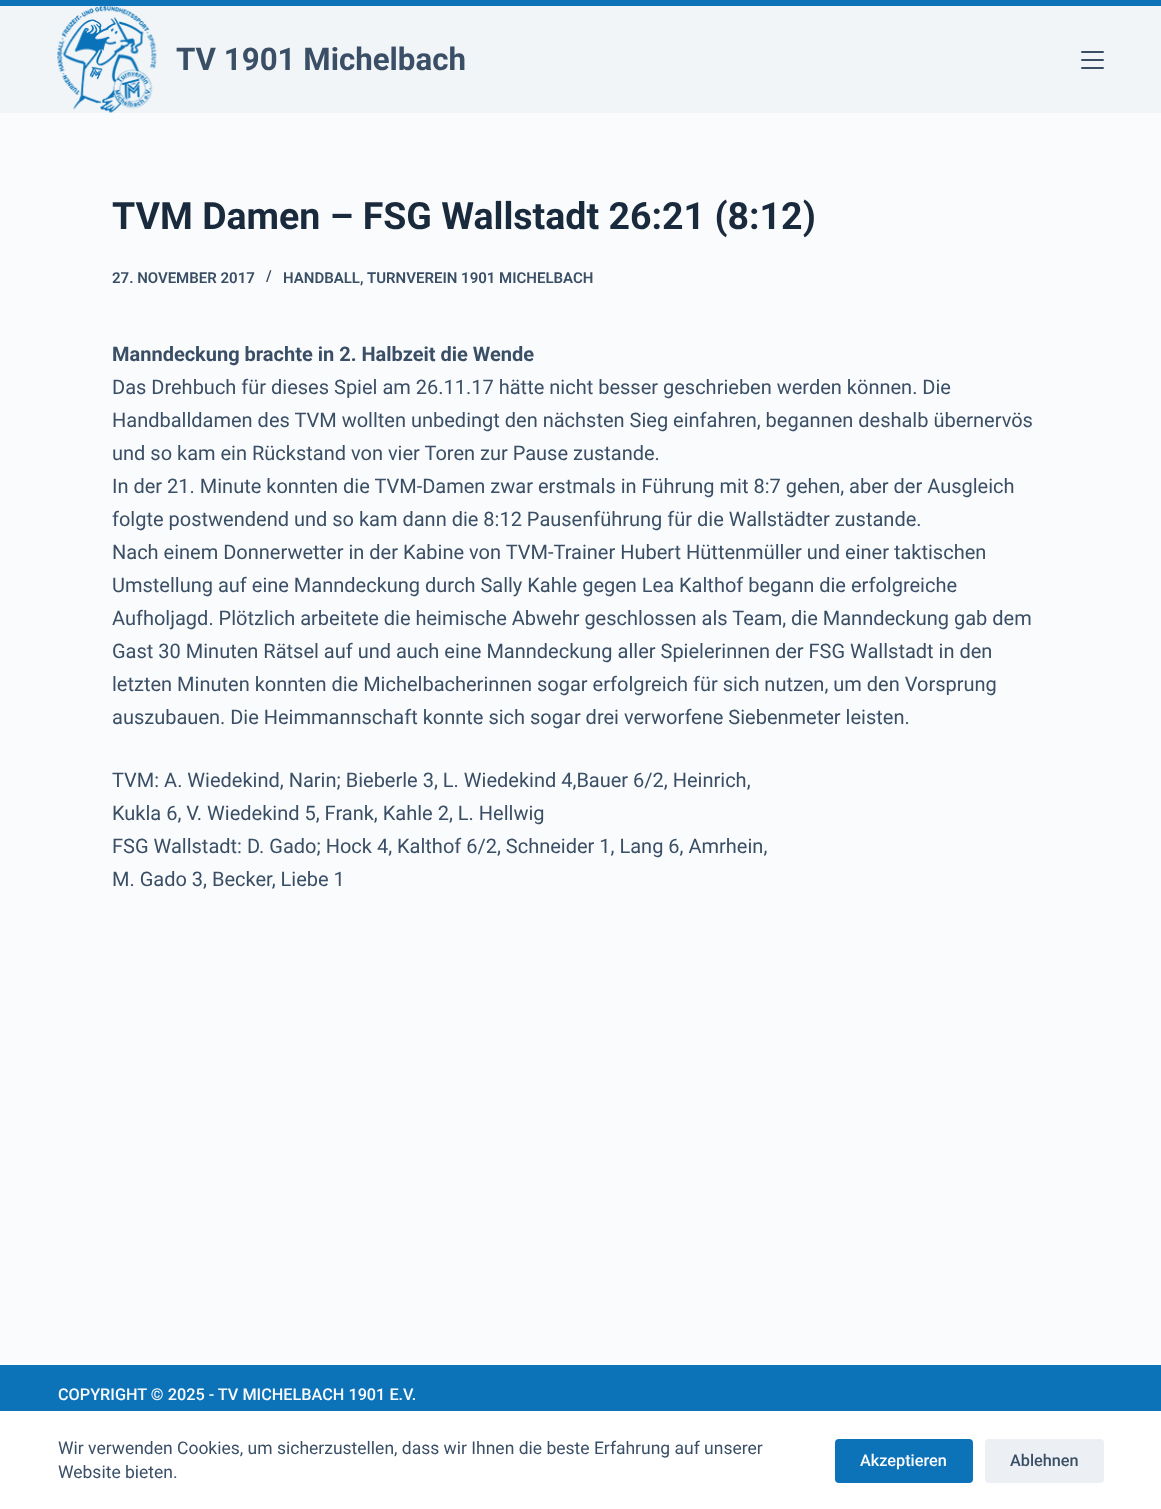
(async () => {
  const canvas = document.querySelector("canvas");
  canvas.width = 1161;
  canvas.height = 1509;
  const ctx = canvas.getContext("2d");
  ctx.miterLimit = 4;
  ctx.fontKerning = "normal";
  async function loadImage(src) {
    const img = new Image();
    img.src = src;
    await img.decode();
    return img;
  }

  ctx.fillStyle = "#fafbfc";
  ctx.fillRect(0, 0, 1161, 1509);
  ctx.fillStyle = "#f2f5f7";
  ctx.fillRect(0, 6, 1161, 107);
  ctx.fillStyle = "#0d73b9";
  ctx.fillRect(0, 0, 1161, 6);
  ctx.drawImage(await loadImage("img/1.png"), 57, 6, 100, 107);
  ctx.fillStyle = "#3a4f66";
  ctx.beginPath();
  ctx.roundRect(1081, 51, 23, 2, 1);
  ctx.fill();
  ctx.beginPath();
  ctx.roundRect(1081, 59, 23, 2, 1);
  ctx.fill();
  ctx.beginPath();
  ctx.roundRect(1081, 67, 23, 2, 1);
  ctx.fill();
  ctx.fillStyle = "#0d73b9";
  ctx.fillRect(0, 1365, 1161, 46);
  ctx.fillStyle = "#ffffff";
  ctx.fillRect(0, 1411, 1161, 98);
  ctx.fillStyle = "#0d73b9";
  ctx.beginPath();
  ctx.roundRect(835, 1439, 138, 44, 4);
  ctx.fill();
  ctx.fillStyle = "#eceff3";
  ctx.beginPath();
  ctx.roundRect(985, 1439, 119, 44, 4);
  ctx.fill();
  ctx.font = "bold 31.25px Roboto";
  ctx.fillStyle = "#3a4f66";
  ctx.fillText("TV 1901 Michelbach", 176, 70);
  ctx.font = "bold 37.5px Roboto";
  ctx.fillStyle = "#192a3d";
  ctx.fillText("TVM Damen – FSG Wallstadt 26:21 (8:12)", 112, 229);
  ctx.font = "600 15px Roboto";
  ctx.fillStyle = "#3a4f66";
  for (const [text, x, y] of [
    ["27. NOVEMBER 2017", 112, 283],
    ["/", 266, 281],
    ["HANDBALL,", 283, 283],
    ["TURNVEREIN 1901 MICHELBACH", 367, 283],
  ]) {
    ctx.fillText(text, x, y);
  }
  ctx.font = "bold 20px Roboto";
  ctx.fillText("Manndeckung brachte in 2. Halbzeit die Wende", 112, 361);
  ctx.font = "20px Roboto";
  for (const [text, x, y] of [
    ["Das Drehbuch für dieses Spiel am 26.11.17 hätte nicht besser geschrieben werden können. Die", 112, 394],
    ["Handballdamen des TVM wollten unbedingt den nächsten Sieg einfahren, begannen deshalb übernervös", 112, 427],
    ["und so kam ein Rückstand von vier Toren zur Pause zustande.", 112, 460],
    ["In der 21. Minute konnten die TVM-Damen zwar erstmals in Führung mit 8:7 gehen, aber der Ausgleich", 112, 493],
    ["folgte postwendend und so kam dann die 8:12 Pausenführung für die Wallstädter zustande.", 112, 526],
    ["Nach einem Donnerwetter in der Kabine von TVM-Trainer Hubert Hüttenmüller und einer taktischen", 112, 559],
    ["Umstellung auf eine Manndeckung durch Sally Kahle gegen Lea Kalthof begann die erfolgreiche", 112, 592],
    ["Aufholjagd. Plötzlich arbeitete die heimische Abwehr geschlossen als Team, die Manndeckung gab dem", 112, 625],
    ["Gast 30 Minuten Rätsel auf und auch eine Manndeckung aller Spielerinnen der FSG Wallstadt in den", 112, 658],
    ["letzten Minuten konnten die Michelbacherinnen sogar erfolgreich für sich nutzen, um den Vorsprung", 112, 691],
    ["auszubauen. Die Heimmannschaft konnte sich sogar drei verworfene Siebenmeter leisten.", 112, 724],
    ["TVM: A. Wiedekind, Narin; Bieberle 3, L. Wiedekind 4,Bauer 6/2, Heinrich,", 112, 787],
    ["Kukla 6, V. Wiedekind 5, Frank, Kahle 2, L. Hellwig", 112, 820],
    ["FSG Wallstadt: D. Gado; Hock 4, Kalthof 6/2, Schneider 1, Lang 6, Amrhein,", 112, 853],
    ["M. Gado 3, Becker, Liebe 1", 112, 886],
  ]) {
    ctx.fillText(text, x, y);
  }
  ctx.font = "500 16.25px Roboto";
  ctx.fillStyle = "#fafbfc";
  ctx.fillText("COPYRIGHT © 2025 - TV MICHELBACH 1901 E.V.", 58, 1400);
  ctx.font = "17.5px Roboto";
  ctx.fillStyle = "#3a4f66";
  ctx.fillText("Wir verwenden Cookies, um sicherzustellen, dass wir Ihnen die beste Erfahrung auf unserer", 58, 1454);
  ctx.fillText("Website bieten.", 58, 1478);
  ctx.font = "500 16.25px Roboto";
  ctx.fillStyle = "#fafbfc";
  ctx.fillText("Akzeptieren", 860, 1466);
  ctx.fillStyle = "#3a4f66";
  ctx.fillText("Ablehnen", 1010, 1466);
})();
